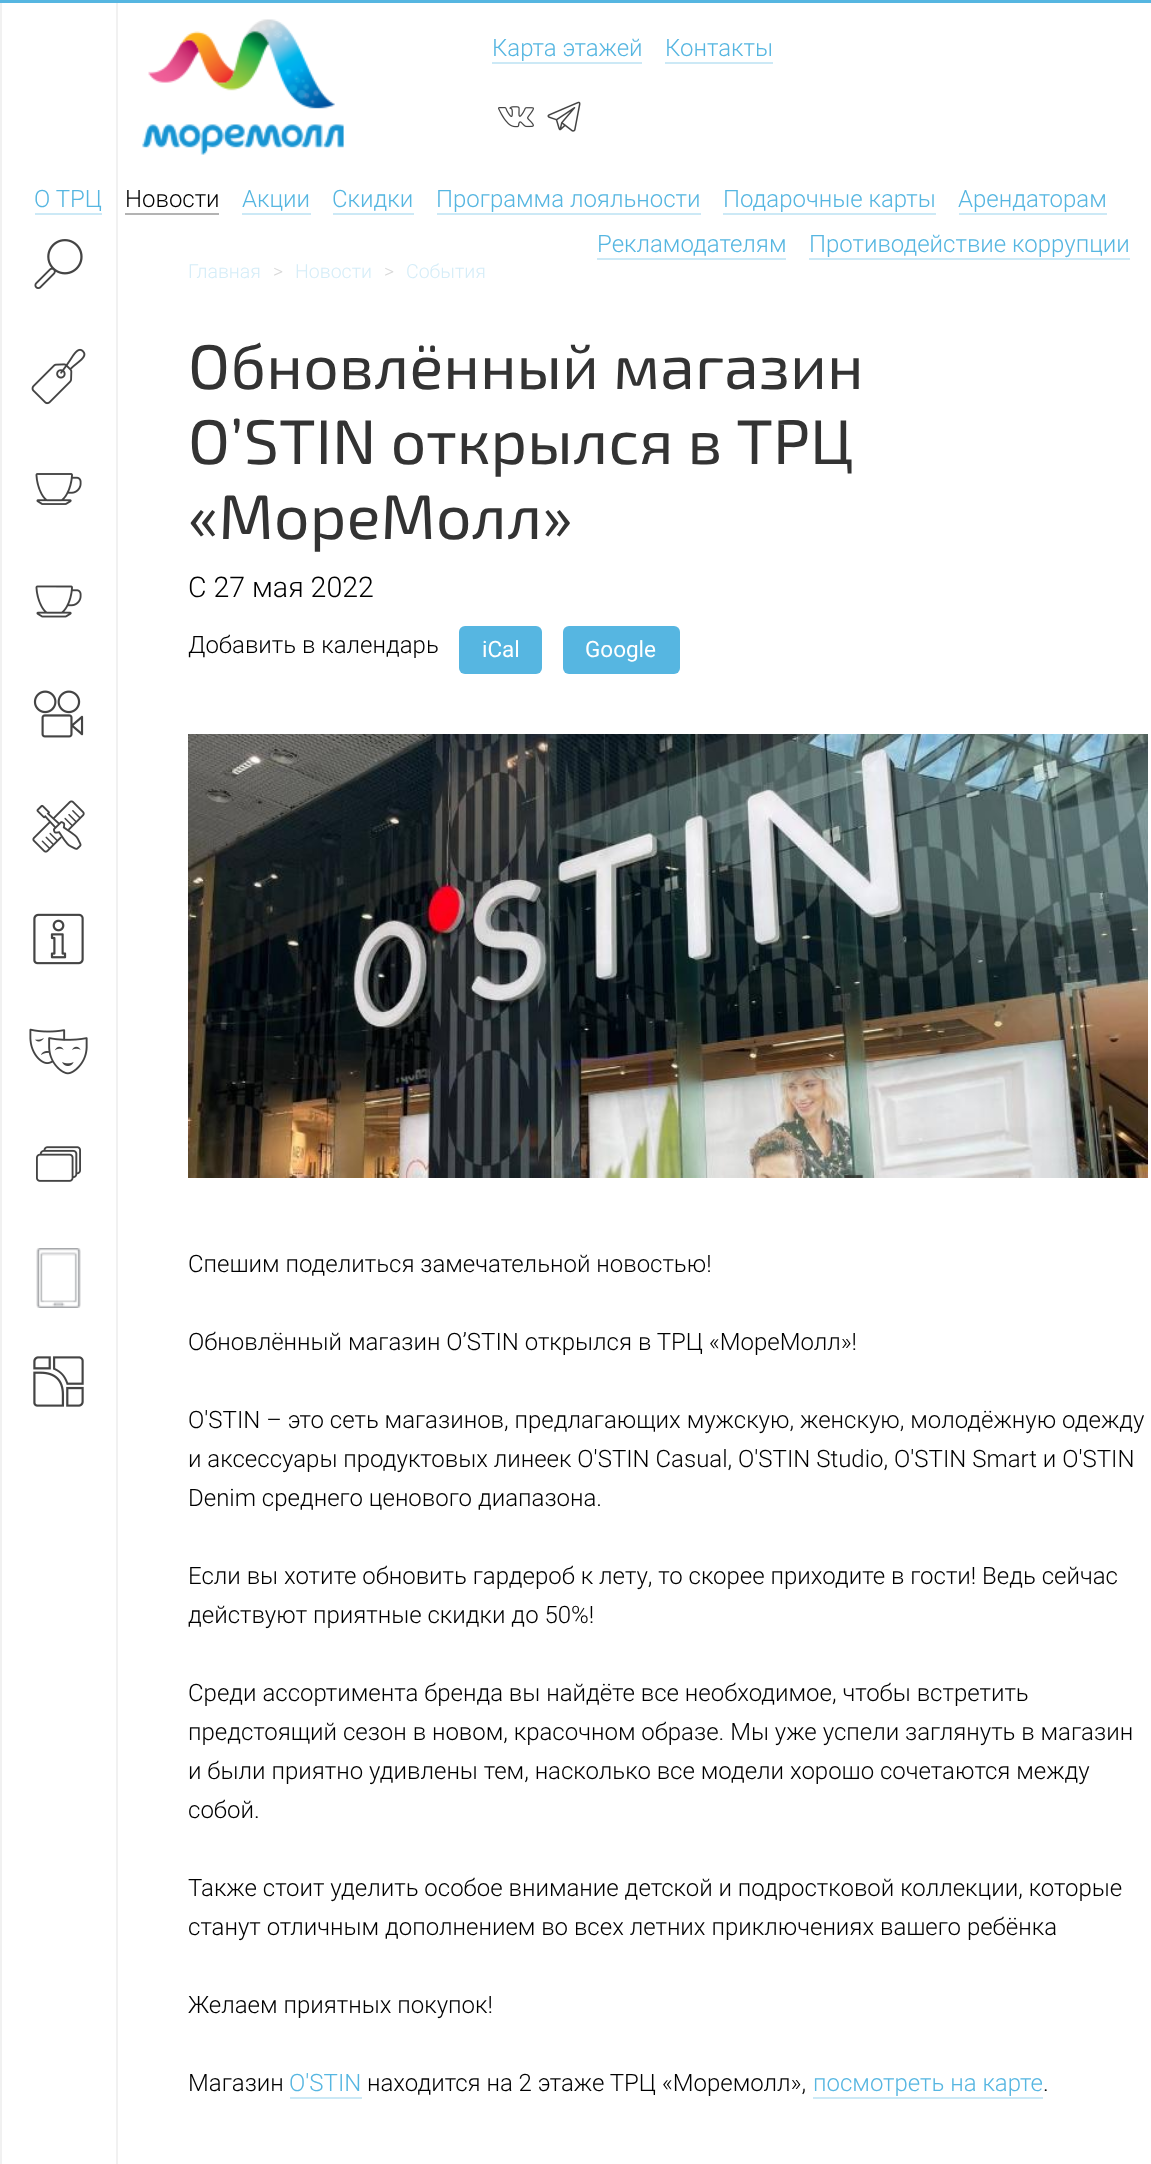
(async () => {
  const canvas = document.querySelector("canvas");
  canvas.width = 1151;
  canvas.height = 2164;
  const ctx = canvas.getContext("2d");
  ctx.miterLimit = 4;
  ctx.fontKerning = "normal";
  async function loadImage(src) {
    const img = new Image();
    img.src = src;
    await img.decode();
    return img;
  }

  ctx.fillStyle = "#ffffff";
  ctx.fillRect(0, 0, 1151, 2164);
  ctx.fillStyle = "#56b6e1";
  ctx.fillRect(0, 0, 1151, 3);
  ctx.drawImage(await loadImage("img/1.png"), 142, 19, 202, 136);
  ctx.fillStyle = "#cce9f6";
  ctx.fillRect(492, 62, 150, 2);
  ctx.fillRect(665, 62, 108, 2);
  ctx.drawImage(await loadImage("img/2.png"), 498, 106, 36, 22);
  ctx.drawImage(await loadImage("img/3.png"), 547, 101, 34, 31);
  for (const [x, y, w, h, color] of [
    [35, 213, 67, 2, "#cce9f6"],
    [125, 213, 94, 2, "#b3b3b3"],
    [242, 213, 69, 2, "#cce9f6"],
    [333, 213, 81, 2, "#cce9f6"],
    [437, 213, 264, 2, "#cce9f6"],
    [723, 213, 213, 2, "#cce9f6"],
    [959, 213, 148, 2, "#cce9f6"],
    [597, 258, 189, 2, "#cce9f6"],
    [809, 258, 321, 2, "#cce9f6"],
  ]) {
    ctx.fillStyle = color;
    ctx.fillRect(x, y, w, h);
  }
  ctx.fillStyle = "#56b6e1";
  ctx.beginPath();
  ctx.roundRect(459, 626, 83, 48, 6);
  ctx.fill();
  ctx.beginPath();
  ctx.roundRect(563, 626, 117, 48, 6);
  ctx.fill();
  ctx.fillStyle = "#f1f1f1";
  ctx.fillRect(116, 3, 2, 2161);
  ctx.fillRect(0, 3, 2, 2161);
  ctx.drawImage(await loadImage("img/4.png"), 34, 239, 49, 50);
  ctx.drawImage(await loadImage("img/5.png"), 31, 348, 55, 57);
  ctx.drawImage(await loadImage("img/6.png"), 35, 473, 47, 32);
  ctx.drawImage(await loadImage("img/7.png"), 35, 585, 47, 33);
  ctx.drawImage(await loadImage("img/8.png"), 33, 690, 51, 48);
  ctx.drawImage(await loadImage("img/9.png"), 32, 800, 53, 53);
  ctx.drawImage(await loadImage("img/10.png"), 33, 913, 51, 52);
  ctx.drawImage(await loadImage("img/11.png"), 29, 1028, 59, 47);
  ctx.drawImage(await loadImage("img/12.png"), 36, 1146, 45, 36);
  ctx.drawImage(await loadImage("img/13.png"), 36, 1248, 45, 60);
  ctx.drawImage(await loadImage("img/14.png"), 33, 1356, 51, 51);
  ctx.drawImage(await loadImage("img/15.png"), 188, 734, 960, 444);
  ctx.fillStyle = "#cce9f6";
  ctx.fillRect(290, 2097, 72, 2);
  ctx.fillRect(813, 2097, 230, 2);
  ctx.font = "300 24px Roboto";
  ctx.fillStyle = "#56b6e1";
  for (const [text, x, y] of [
    ["Карта этажей", 492, 56],
    ["Контакты", 665, 56],
    ["О ТРЦ", 34, 207],
  ]) {
    ctx.fillText(text, x, y);
  }
  ctx.fillStyle = "#000000";
  ctx.fillText("Новости", 125, 207);
  ctx.fillStyle = "#56b6e1";
  for (const [text, x, y] of [
    ["Акции", 242, 207],
    ["Скидки", 332, 207],
    ["Программа лояльности", 436, 207],
    ["Подарочные карты", 723, 207],
    ["Арендаторам", 958, 207],
    ["Рекламодателям", 597, 252],
    ["Противодействие коррупции", 809, 252],
  ]) {
    ctx.fillText(text, x, y);
  }
  ctx.font = "300 19.5px Roboto";
  ctx.fillStyle = "#d5edf8";
  ctx.fillText("Главная", 188, 278);
  ctx.fillStyle = "#d9d9d9";
  ctx.fillText(">", 273, 278);
  ctx.fillStyle = "#d5edf8";
  ctx.fillText("Новости", 295, 278);
  ctx.fillStyle = "#d9d9d9";
  ctx.fillText(">", 384, 278);
  ctx.fillStyle = "#d5edf8";
  ctx.fillText("События", 406, 278);
  ctx.font = "63px 'Exo 2'";
  ctx.fillStyle = "#333333";
  for (const [text, x, y] of [
    ["Обновлённый магазин", 188, 389],
    ["O’STIN открылся в ТРЦ", 188, 464],
    ["«МореMолл»", 188, 539],
  ]) {
    ctx.fillText(text, x, y);
  }
  ctx.font = "300 28.5px Roboto";
  ctx.fillStyle = "#000000";
  ctx.fillText("С 27 мая 2022", 188, 597);
  ctx.font = "300 24px Roboto";
  ctx.fillText("Добавить в календарь", 188, 653);
  ctx.font = "22.5px Roboto";
  ctx.fillStyle = "#ffffff";
  ctx.fillText("iCal", 482, 657);
  ctx.fillText("Google", 585, 657);
  ctx.font = "300 24px Roboto";
  ctx.fillStyle = "#000000";
  for (const [text, x, y] of [
    ["Спешим поделиться замечательной новостью!", 188, 1272],
    ["Обновлённый магазин O’STIN открылся в ТРЦ «МореMолл»!", 188, 1350],
    ["O'STIN – это сеть магазинов, предлагающих мужскую, женскую, молодёжную одежду", 188, 1428],
    ["и аксессуары продуктовых линеек O'STIN Casual, O'STIN Studio, O'STIN Smart и O'STIN", 188, 1467],
    ["Denim среднего ценового диапазона.", 188, 1506],
    ["Если вы хотите обновить гардероб к лету, то скорее приходите в гости! Ведь сейчас", 188, 1584],
    ["действуют приятные скидки до 50%!", 188, 1623],
    ["Среди ассортимента бренда вы найдёте все необходимое, чтобы встретить", 188, 1701],
    ["предстоящий сезон в новом, красочном образе. Мы уже успели заглянуть в магазин", 188, 1740],
    ["и были приятно удивлены тем, насколько все модели хорошо сочетаются между", 188, 1779],
    ["собой.", 188, 1818],
    ["Также стоит уделить особое внимание детской и подростковой коллекции, которые", 188, 1896],
    ["станут отличным дополнением во всех летних приключениях вашего ребёнка", 188, 1935],
    ["Желаем приятных покупок!", 188, 2013],
    ["Магазин", 188, 2091],
  ]) {
    ctx.fillText(text, x, y);
  }
  ctx.fillStyle = "#56b6e1";
  ctx.fillText("O'STIN", 289, 2091);
  ctx.fillStyle = "#000000";
  ctx.fillText("находится на 2 этаже ТРЦ «Моремолл»,", 367, 2091);
  ctx.fillStyle = "#56b6e1";
  ctx.fillText("посмотреть на карте", 813, 2091);
  ctx.fillStyle = "#000000";
  ctx.fillText(".", 1043, 2091);
})();
